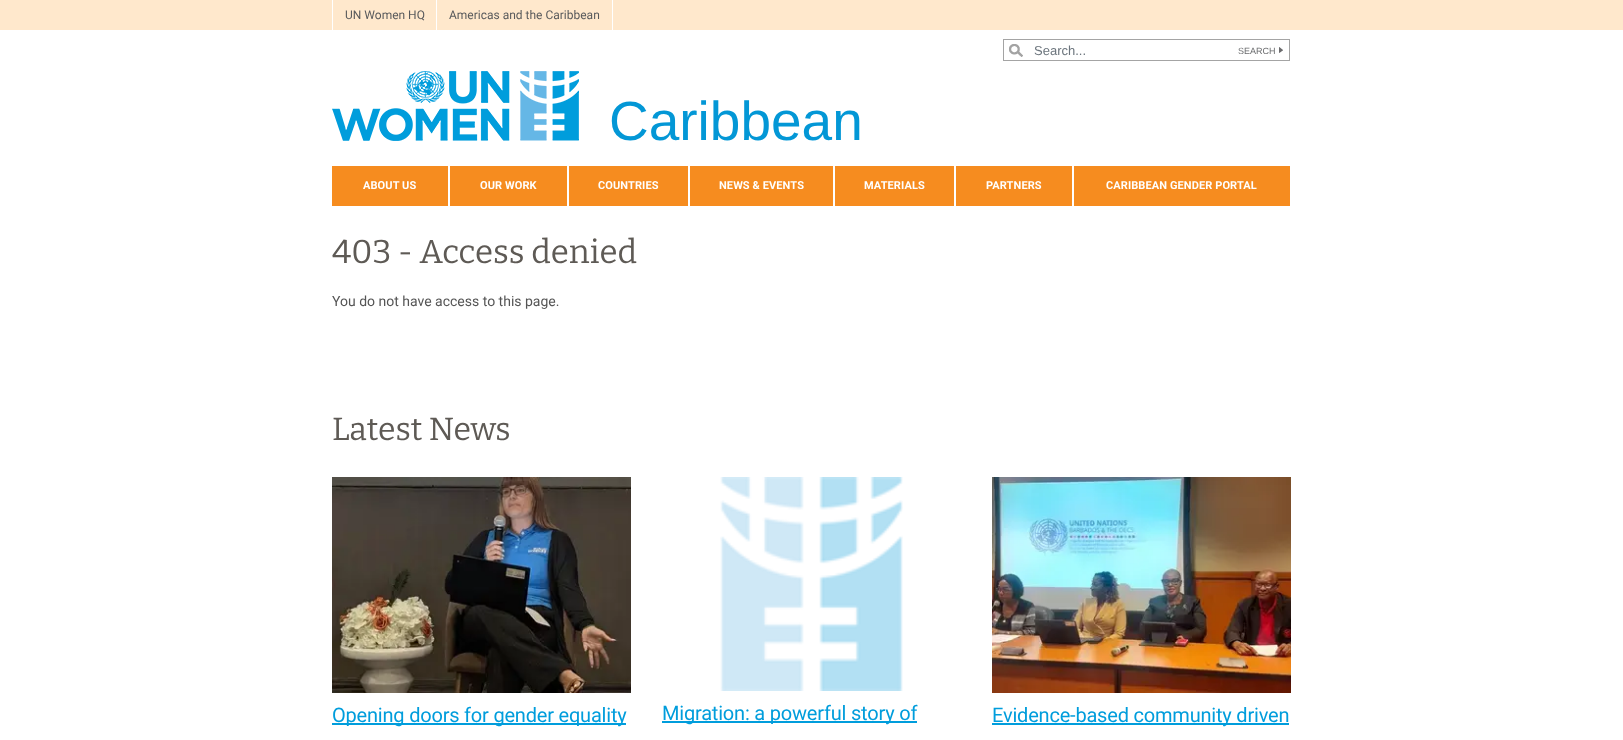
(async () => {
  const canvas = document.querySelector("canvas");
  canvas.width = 1623;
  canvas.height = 740;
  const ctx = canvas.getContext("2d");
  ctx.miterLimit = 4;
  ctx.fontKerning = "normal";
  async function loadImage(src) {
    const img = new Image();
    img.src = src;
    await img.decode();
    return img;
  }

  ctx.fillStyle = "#ffffff";
  ctx.fillRect(0, 0, 1623, 740);
  for (const [x, y, w, h, color] of [
    [0, 0, 1623, 30, "#ffe8cc"],
    [332, 0, 1, 30, "#ffffff"],
    [612, 0, 1, 30, "#ffffff"],
    [436, 0, 1, 30, "#ffffff"],
  ]) {
    ctx.fillStyle = color;
    ctx.fillRect(x, y, w, h);
  }
  ctx.strokeStyle = "#a4a4a4";
  ctx.strokeRect(1003.5, 39.5, 286, 21);
  ctx.drawImage(await loadImage("img/1.png"), 1009, 44, 14, 13);
  ctx.drawImage(await loadImage("img/2.png"), 1279, 47, 4, 6);
  ctx.drawImage(await loadImage("img/3.png"), 332, 71, 247, 70);
  for (const [x, y, w, h, color] of [
    [332, 166, 116, 40, "#f68c1f"],
    [450, 166, 117, 40, "#f68c1f"],
    [569, 166, 119, 40, "#f68c1f"],
    [690, 166, 143, 40, "#f68c1f"],
    [835, 166, 119, 40, "#f68c1f"],
    [956, 166, 116, 40, "#f68c1f"],
    [1074, 166, 216, 40, "#f68c1f"],
  ]) {
    ctx.fillStyle = color;
    ctx.fillRect(x, y, w, h);
  }
  ctx.drawImage(await loadImage("img/4.png"), 332, 477, 299, 216);
  ctx.fillStyle = "#009ddc";
  ctx.fillRect(332, 723, 294, 2);
  ctx.drawImage(await loadImage("img/5.png"), 720, 477, 183, 214);
  ctx.fillRect(662, 721, 255, 2);
  ctx.drawImage(await loadImage("img/6.png"), 992, 477, 299, 216);
  ctx.fillRect(992, 723, 297, 2);
  ctx.font = "12px Roboto";
  ctx.fillStyle = "#595a5c";
  ctx.fillText("UN Women HQ", 345, 19);
  ctx.fillText("Americas and the Caribbean", 449, 19);
  ctx.font = "13px Liberation Sans";
  ctx.fillStyle = "#6c757d";
  ctx.fillText("Search...", 1034, 55);
  ctx.font = "9px Liberation Sans";
  ctx.fillStyle = "#6c6d6f";
  ctx.fillText("SEARCH", 1238, 54);
  ctx.font = "55px Liberation Sans";
  ctx.fillStyle = "#0397d6";
  ctx.fillText("Caribbean", 609, 140);
  ctx.letterSpacing = "0.1px";
  ctx.font = "bold 11px Roboto";
  ctx.fillStyle = "#ffffff";
  for (const [text, x, y] of [
    ["ABOUT US", 363, 189],
    ["OUR WORK", 480, 189],
    ["COUNTRIES", 598, 189],
    ["NEWS & EVENTS", 719, 189],
    ["MATERIALS", 864, 189],
    ["PARTNERS", 986, 189],
    ["CARIBBEAN GENDER PORTAL", 1106, 189],
  ]) {
    ctx.fillText(text, x, y);
  }
  ctx.letterSpacing = "0px";
  ctx.font = "33px Bitter";
  ctx.fillStyle = "#5e5a55";
  ctx.fillText("403 - Access denied", 332, 263);
  ctx.font = "14px Roboto";
  ctx.fillStyle = "#555555";
  ctx.fillText("You do not have access to this page.", 332, 306);
  ctx.font = "32px Bitter";
  ctx.fillStyle = "#5e5a55";
  ctx.fillText("Latest News", 332, 440);
  ctx.letterSpacing = "-0.2px";
  ctx.font = "20px Roboto";
  ctx.fillStyle = "#009ddc";
  for (const [text, x, y] of [
    ["Opening doors for gender equality", 332, 722],
    ["Migration: a powerful story of", 662, 720],
    ["Evidence-based community driven", 992, 722],
  ]) {
    ctx.fillText(text, x, y);
  }
})();
